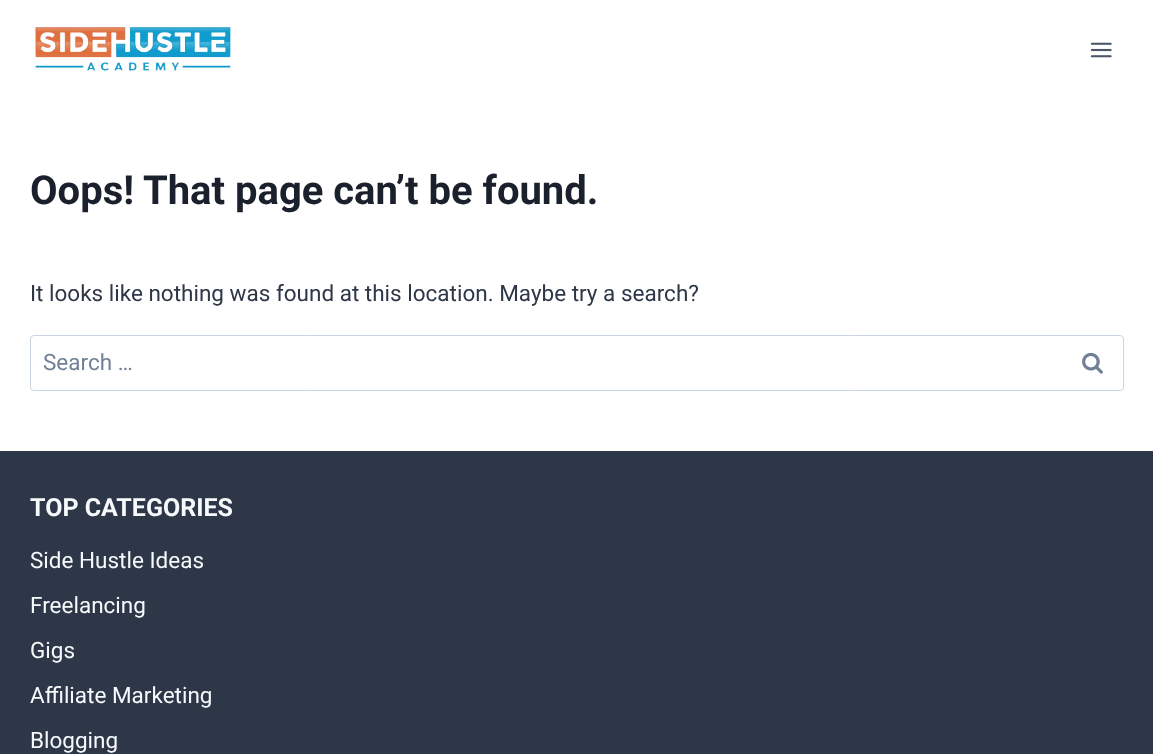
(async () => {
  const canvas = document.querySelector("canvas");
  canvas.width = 1153;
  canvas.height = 754;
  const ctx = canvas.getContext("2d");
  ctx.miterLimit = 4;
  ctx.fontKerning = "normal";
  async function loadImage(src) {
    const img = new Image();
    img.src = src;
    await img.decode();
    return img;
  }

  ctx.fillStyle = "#ffffff";
  ctx.fillRect(0, 0, 1153, 754);
  ctx.drawImage(await loadImage("img/1.png"), 34, 26, 197, 45);
  ctx.drawImage(await loadImage("img/2.png"), 1090, 42, 22, 16);
  ctx.beginPath();
  ctx.roundRect(30.5, 335.5, 1093, 55, 3.5);
  ctx.strokeStyle = "#cbd5e0";
  ctx.stroke();
  ctx.drawImage(await loadImage("img/3.png"), 1082, 352, 21, 22);
  ctx.fillStyle = "#2d3748";
  ctx.fillRect(0, 451, 1153, 303);
  ctx.font = "bold 40px Roboto";
  ctx.fillStyle = "#1a202c";
  ctx.fillText("Oops! That page can’t be found.", 30, 204);
  ctx.font = "22.5px Roboto";
  ctx.fillStyle = "#2d3748";
  ctx.fillText("It looks like nothing was found at this location. Maybe try a search?", 30, 301);
  ctx.fillStyle = "#718096";
  ctx.fillText("Search …", 43, 370);
  ctx.font = "bold 25px Roboto";
  ctx.fillStyle = "#f7fafc";
  ctx.fillText("TOP CATEGORIES", 30, 516);
  ctx.font = "22.5px Roboto";
  for (const [text, x, y] of [
    ["Side Hustle Ideas", 30, 568],
    ["Freelancing", 30, 613],
    ["Gigs", 30, 658],
    ["Affiliate Marketing", 30, 703],
    ["Blogging", 30, 748],
  ]) {
    ctx.fillText(text, x, y);
  }
})();
